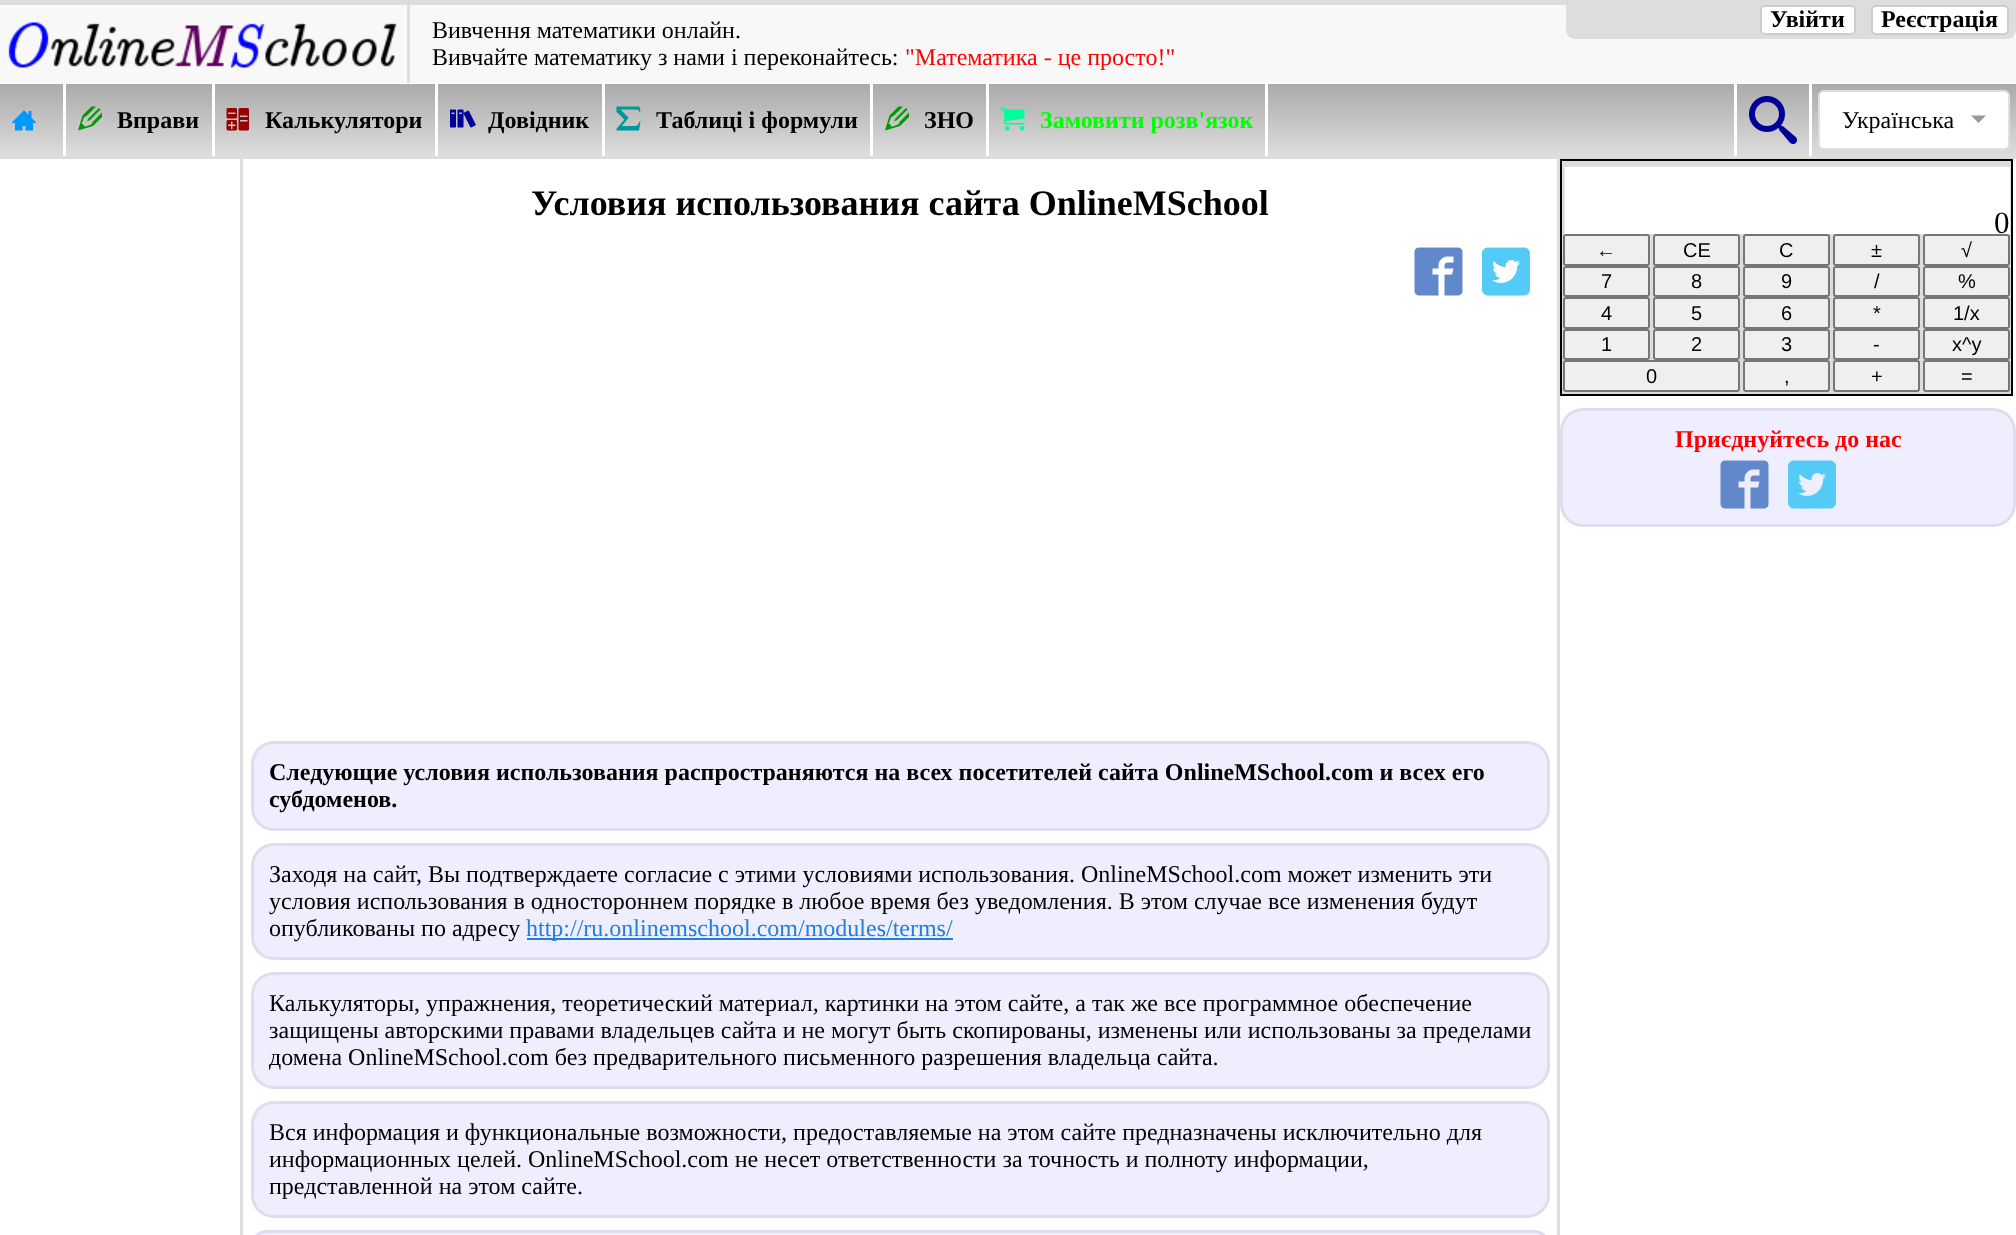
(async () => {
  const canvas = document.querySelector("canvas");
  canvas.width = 2016;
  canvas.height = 1235;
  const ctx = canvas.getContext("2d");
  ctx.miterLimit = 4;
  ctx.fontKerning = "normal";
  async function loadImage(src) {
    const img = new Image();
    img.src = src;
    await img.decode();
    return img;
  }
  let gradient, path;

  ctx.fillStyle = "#f8f8f8";
  ctx.fillRect(0, 0, 2016, 1235);
  for (const [x, y, w, h, color] of [
    [0, 0, 2016, 5, "#dddddd"],
    [0, 83, 2016, 1, "#ffffff"],
    [407, 5, 3, 78, "#dddddd"],
  ]) {
    ctx.fillStyle = color;
    ctx.fillRect(x, y, w, h);
  }
  ctx.drawImage(await loadImage("img/1.png"), 8, 22, 389, 46);
  ctx.beginPath();
  ctx.roundRect(1566, 5, 450, 34, [0, 0, 9, 9]);
  ctx.fill();
  ctx.fillStyle = "#ffffff";
  ctx.beginPath();
  ctx.roundRect(1761, 6, 94, 28, 4);
  ctx.fill();
  ctx.strokeStyle = "#cccccc";
  ctx.lineWidth = 2;
  ctx.stroke();
  ctx.beginPath();
  ctx.roundRect(1872, 6, 136, 28, 4);
  ctx.fill();
  ctx.stroke();
  gradient = ctx.createLinearGradient(0, 156, 0, 84);
  gradient.addColorStop(0, "#dddddd");
  gradient.addColorStop(1, "#aaaaaa");
  ctx.fillStyle = gradient;
  ctx.fillRect(0, 84, 2016, 72);
  ctx.fillStyle = "#ffffff";
  ctx.fillRect(63, 84, 3, 72);
  ctx.drawImage(await loadImage("img/2.png"), 12, 110, 24, 21);
  ctx.fillRect(212, 84, 3, 72);
  ctx.drawImage(await loadImage("img/3.png"), 78, 106, 24, 25);
  ctx.fillRect(435, 84, 3, 72);
  ctx.drawImage(await loadImage("img/4.png"), 226, 108, 23, 23);
  ctx.fillRect(602, 84, 3, 72);
  ctx.drawImage(await loadImage("img/5.png"), 450, 109, 26, 19);
  ctx.fillRect(870, 84, 3, 72);
  ctx.drawImage(await loadImage("img/6.png"), 616, 106, 25, 25);
  ctx.fillRect(986, 84, 3, 72);
  ctx.drawImage(await loadImage("img/3.png"), 885, 106, 24, 25);
  ctx.fillRect(1265, 84, 3, 72);
  ctx.drawImage(await loadImage("img/7.png"), 1000, 108, 25, 23);
  ctx.fillRect(1809, 84, 3, 72);
  ctx.fillRect(1734, 84, 3, 72);
  ctx.drawImage(await loadImage("img/8.png"), 1749, 96, 48, 48);
  ctx.beginPath();
  ctx.roundRect(1819, 91, 190, 58, 5);
  ctx.fill();
  ctx.strokeStyle = "#dcdfe6";
  ctx.stroke();
  ctx.fillStyle = "#999999";
  path = new Path2D("M1971 115.5H1986L1978.5 123Z");
  ctx.fill(path);
  for (const [x, y, w, h, color] of [
    [0, 159, 240, 1076, "#ffffff"],
    [0, 156, 2016, 3, "#dddddd"],
    [240, 156, 3, 1079, "#dddddd"],
    [243, 159, 1314, 1076, "#ffffff"],
    [1557, 156, 3, 1079, "#dddddd"],
  ]) {
    ctx.fillStyle = color;
    ctx.fillRect(x, y, w, h);
  }
  ctx.drawImage(await loadImage("img/9.png"), 1414, 247, 49, 49);
  ctx.drawImage(await loadImage("img/10.png"), 1482, 247, 48, 49);
  ctx.fillStyle = "#eeeeff";
  ctx.beginPath();
  ctx.roundRect(252.5, 742.5, 1296, 87, 21.5);
  ctx.fill();
  ctx.strokeStyle = "#ddddee";
  ctx.lineWidth = 3;
  ctx.stroke();
  ctx.beginPath();
  ctx.roundRect(252.5, 844.5, 1296, 114, 21.5);
  ctx.fill();
  ctx.stroke();
  ctx.fillStyle = "#2080dd";
  ctx.fillRect(527, 938, 426, 2);
  ctx.fillStyle = "#eeeeff";
  ctx.beginPath();
  ctx.roundRect(252.5, 973.5, 1296, 114, 21.5);
  ctx.fill();
  ctx.stroke();
  ctx.beginPath();
  ctx.roundRect(252.5, 1102.5, 1296, 114, 21.5);
  ctx.fill();
  ctx.stroke();
  ctx.beginPath();
  ctx.roundRect(252.5, 1231.5, 1296, 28, 21.5);
  ctx.fill();
  ctx.stroke();
  ctx.fillStyle = "#ffffff";
  ctx.fillRect(1560, 159, 456, 1076);
  ctx.fillStyle = "#dddddd";
  ctx.beginPath();
  ctx.rect(1561, 160, 451, 235);
  ctx.fill();
  ctx.strokeStyle = "#000000";
  ctx.lineWidth = 2;
  ctx.stroke();
  ctx.fillStyle = "#ffffff";
  ctx.fillRect(1565, 167, 445, 67);
  ctx.fillStyle = "#efefef";
  ctx.beginPath();
  ctx.roundRect(1564, 235, 85, 30, 2);
  ctx.fill();
  ctx.strokeStyle = "#767676";
  ctx.stroke();
  ctx.beginPath();
  ctx.roundRect(1654, 235, 85, 30, 2);
  ctx.fill();
  ctx.stroke();
  ctx.beginPath();
  ctx.roundRect(1744, 235, 85, 30, 2);
  ctx.fill();
  ctx.stroke();
  ctx.beginPath();
  ctx.roundRect(1834, 235, 85, 30, 2);
  ctx.fill();
  ctx.stroke();
  ctx.beginPath();
  ctx.roundRect(1924, 235, 85, 30, 2);
  ctx.fill();
  ctx.stroke();
  ctx.beginPath();
  ctx.roundRect(1564, 267, 85, 29, 2);
  ctx.fill();
  ctx.stroke();
  ctx.beginPath();
  ctx.roundRect(1654, 267, 85, 29, 2);
  ctx.fill();
  ctx.stroke();
  ctx.beginPath();
  ctx.roundRect(1744, 267, 85, 29, 2);
  ctx.fill();
  ctx.stroke();
  ctx.beginPath();
  ctx.roundRect(1834, 267, 85, 29, 2);
  ctx.fill();
  ctx.stroke();
  ctx.beginPath();
  ctx.roundRect(1924, 267, 85, 29, 2);
  ctx.fill();
  ctx.stroke();
  ctx.beginPath();
  ctx.roundRect(1564, 298, 85, 30, 2);
  ctx.fill();
  ctx.stroke();
  ctx.beginPath();
  ctx.roundRect(1654, 298, 85, 30, 2);
  ctx.fill();
  ctx.stroke();
  ctx.beginPath();
  ctx.roundRect(1744, 298, 85, 30, 2);
  ctx.fill();
  ctx.stroke();
  ctx.beginPath();
  ctx.roundRect(1834, 298, 85, 30, 2);
  ctx.fill();
  ctx.stroke();
  ctx.beginPath();
  ctx.roundRect(1924, 298, 85, 30, 2);
  ctx.fill();
  ctx.stroke();
  ctx.beginPath();
  ctx.roundRect(1564, 330, 85, 29, 2);
  ctx.fill();
  ctx.stroke();
  ctx.beginPath();
  ctx.roundRect(1654, 330, 85, 29, 2);
  ctx.fill();
  ctx.stroke();
  ctx.beginPath();
  ctx.roundRect(1744, 330, 85, 29, 2);
  ctx.fill();
  ctx.stroke();
  ctx.beginPath();
  ctx.roundRect(1834, 330, 85, 29, 2);
  ctx.fill();
  ctx.stroke();
  ctx.beginPath();
  ctx.roundRect(1924, 330, 85, 29, 2);
  ctx.fill();
  ctx.stroke();
  ctx.beginPath();
  ctx.roundRect(1564, 361, 175, 30, 2);
  ctx.fill();
  ctx.stroke();
  ctx.beginPath();
  ctx.roundRect(1834, 361, 85, 30, 2);
  ctx.fill();
  ctx.stroke();
  ctx.beginPath();
  ctx.roundRect(1924, 361, 85, 30, 2);
  ctx.fill();
  ctx.stroke();
  ctx.beginPath();
  ctx.roundRect(1744, 361, 85, 30, 2);
  ctx.fill();
  ctx.stroke();
  ctx.fillStyle = "#eeeeff";
  ctx.beginPath();
  ctx.roundRect(1561.5, 409.5, 453, 116, 21.5);
  ctx.fill();
  ctx.strokeStyle = "#ddddee";
  ctx.lineWidth = 3;
  ctx.stroke();
  ctx.drawImage(await loadImage("img/11.png"), 1720, 460, 49, 49);
  ctx.drawImage(await loadImage("img/12.png"), 1788, 460, 48, 49);
  ctx.font = "24px Liberation Serif";
  ctx.fillStyle = "#000000";
  ctx.fillText("Вивчення математики онлайн.", 432, 38);
  ctx.fillText("Вивчайте математику з нами і переконайтесь:", 432, 65);
  ctx.fillStyle = "#ff0000";
  ctx.fillText("\"Математика - це просто!\"", 905, 65);
  ctx.font = "bold 24px Liberation Serif";
  ctx.fillStyle = "#000000";
  for (const [text, x, y] of [
    ["Увійти", 1770, 27],
    ["Реєстрація", 1881, 27],
    ["Вправи", 117, 128],
    ["Калькулятори", 265, 128],
    ["Довідник", 488, 128],
    ["Таблиці і формули", 656, 128],
    ["ЗНО", 924, 128],
  ]) {
    ctx.fillText(text, x, y);
  }
  ctx.fillStyle = "#00ff00";
  ctx.fillText("Замовити розв'язок", 1040, 128);
  ctx.font = "24px Liberation Serif";
  ctx.fillStyle = "#000000";
  ctx.fillText("Українська", 1842, 128);
  ctx.font = "bold 36px Liberation Serif";
  ctx.fillText("Условия использования сайта OnlineMSchool", 531, 215);
  ctx.font = "bold 24px Liberation Serif";
  ctx.fillText("Следующие условия использования распространяются на всех посетителей сайта OnlineMSchool.com и всех его", 269, 780);
  ctx.fillText("субдоменов.", 269, 807);
  ctx.font = "24px Liberation Serif";
  for (const [text, x, y] of [
    ["Заходя на сайт, Вы подтверждаете согласие с этими условиями использования. OnlineMSchool.com может изменить эти", 269, 882],
    ["условия использования в одностороннем порядке в любое время без уведомления. В этом случае все изменения будут", 269, 909],
    ["опубликованы по адресу", 269, 936],
  ]) {
    ctx.fillText(text, x, y);
  }
  ctx.fillStyle = "#2080dd";
  ctx.fillText("http://ru.onlinemschool.com/modules/terms/", 526, 936);
  ctx.fillStyle = "#000000";
  for (const [text, x, y] of [
    ["Калькуляторы, упражнения, теоретический материал, картинки на этом сайте, а так же все программное обеспечение", 269, 1011],
    ["защищены авторскими правами владельцев сайта и не могут быть скопированы, изменены или использованы за пределами", 269, 1038],
    ["домена OnlineMSchool.com без предварительного письменного разрешения владельца сайта.", 269, 1065],
    ["Вся информация и функциональные возможности, предоставляемые на этом сайте предназначены исключительно для", 269, 1140],
    ["информационных целей. OnlineMSchool.com не несет ответственности за точность и полноту информации,", 269, 1167],
    ["представленной на этом сайте.", 269, 1194],
  ]) {
    ctx.fillText(text, x, y);
  }
  ctx.font = "31px Liberation Serif";
  ctx.fillText("0", 1994, 233);
  ctx.font = "20px Liberation Sans";
  for (const [text, x, y] of [
    ["←", 1596, 257],
    ["CE", 1683, 257],
    ["C", 1779, 257],
    ["±", 1871, 257],
    ["√", 1961, 257],
    ["7", 1601, 288],
    ["8", 1691, 288],
    ["9", 1781, 288],
    ["/", 1874, 288],
    ["%", 1958, 288],
    ["4", 1601, 320],
    ["5", 1691, 320],
    ["6", 1781, 320],
    ["*", 1873, 320],
    ["1/x", 1953, 320],
    ["1", 1601, 351],
    ["2", 1691, 351],
    ["3", 1781, 351],
    ["-", 1873, 351],
    ["x^y", 1952, 351],
    ["0", 1646, 383],
    ["+", 1871, 383],
    ["=", 1961, 383],
    [",", 1784, 383],
  ]) {
    ctx.fillText(text, x, y);
  }
  ctx.font = "bold 24px Liberation Serif";
  ctx.fillStyle = "#ff0000";
  ctx.fillText("Приєднуйтесь до нас", 1675, 447);
})();
